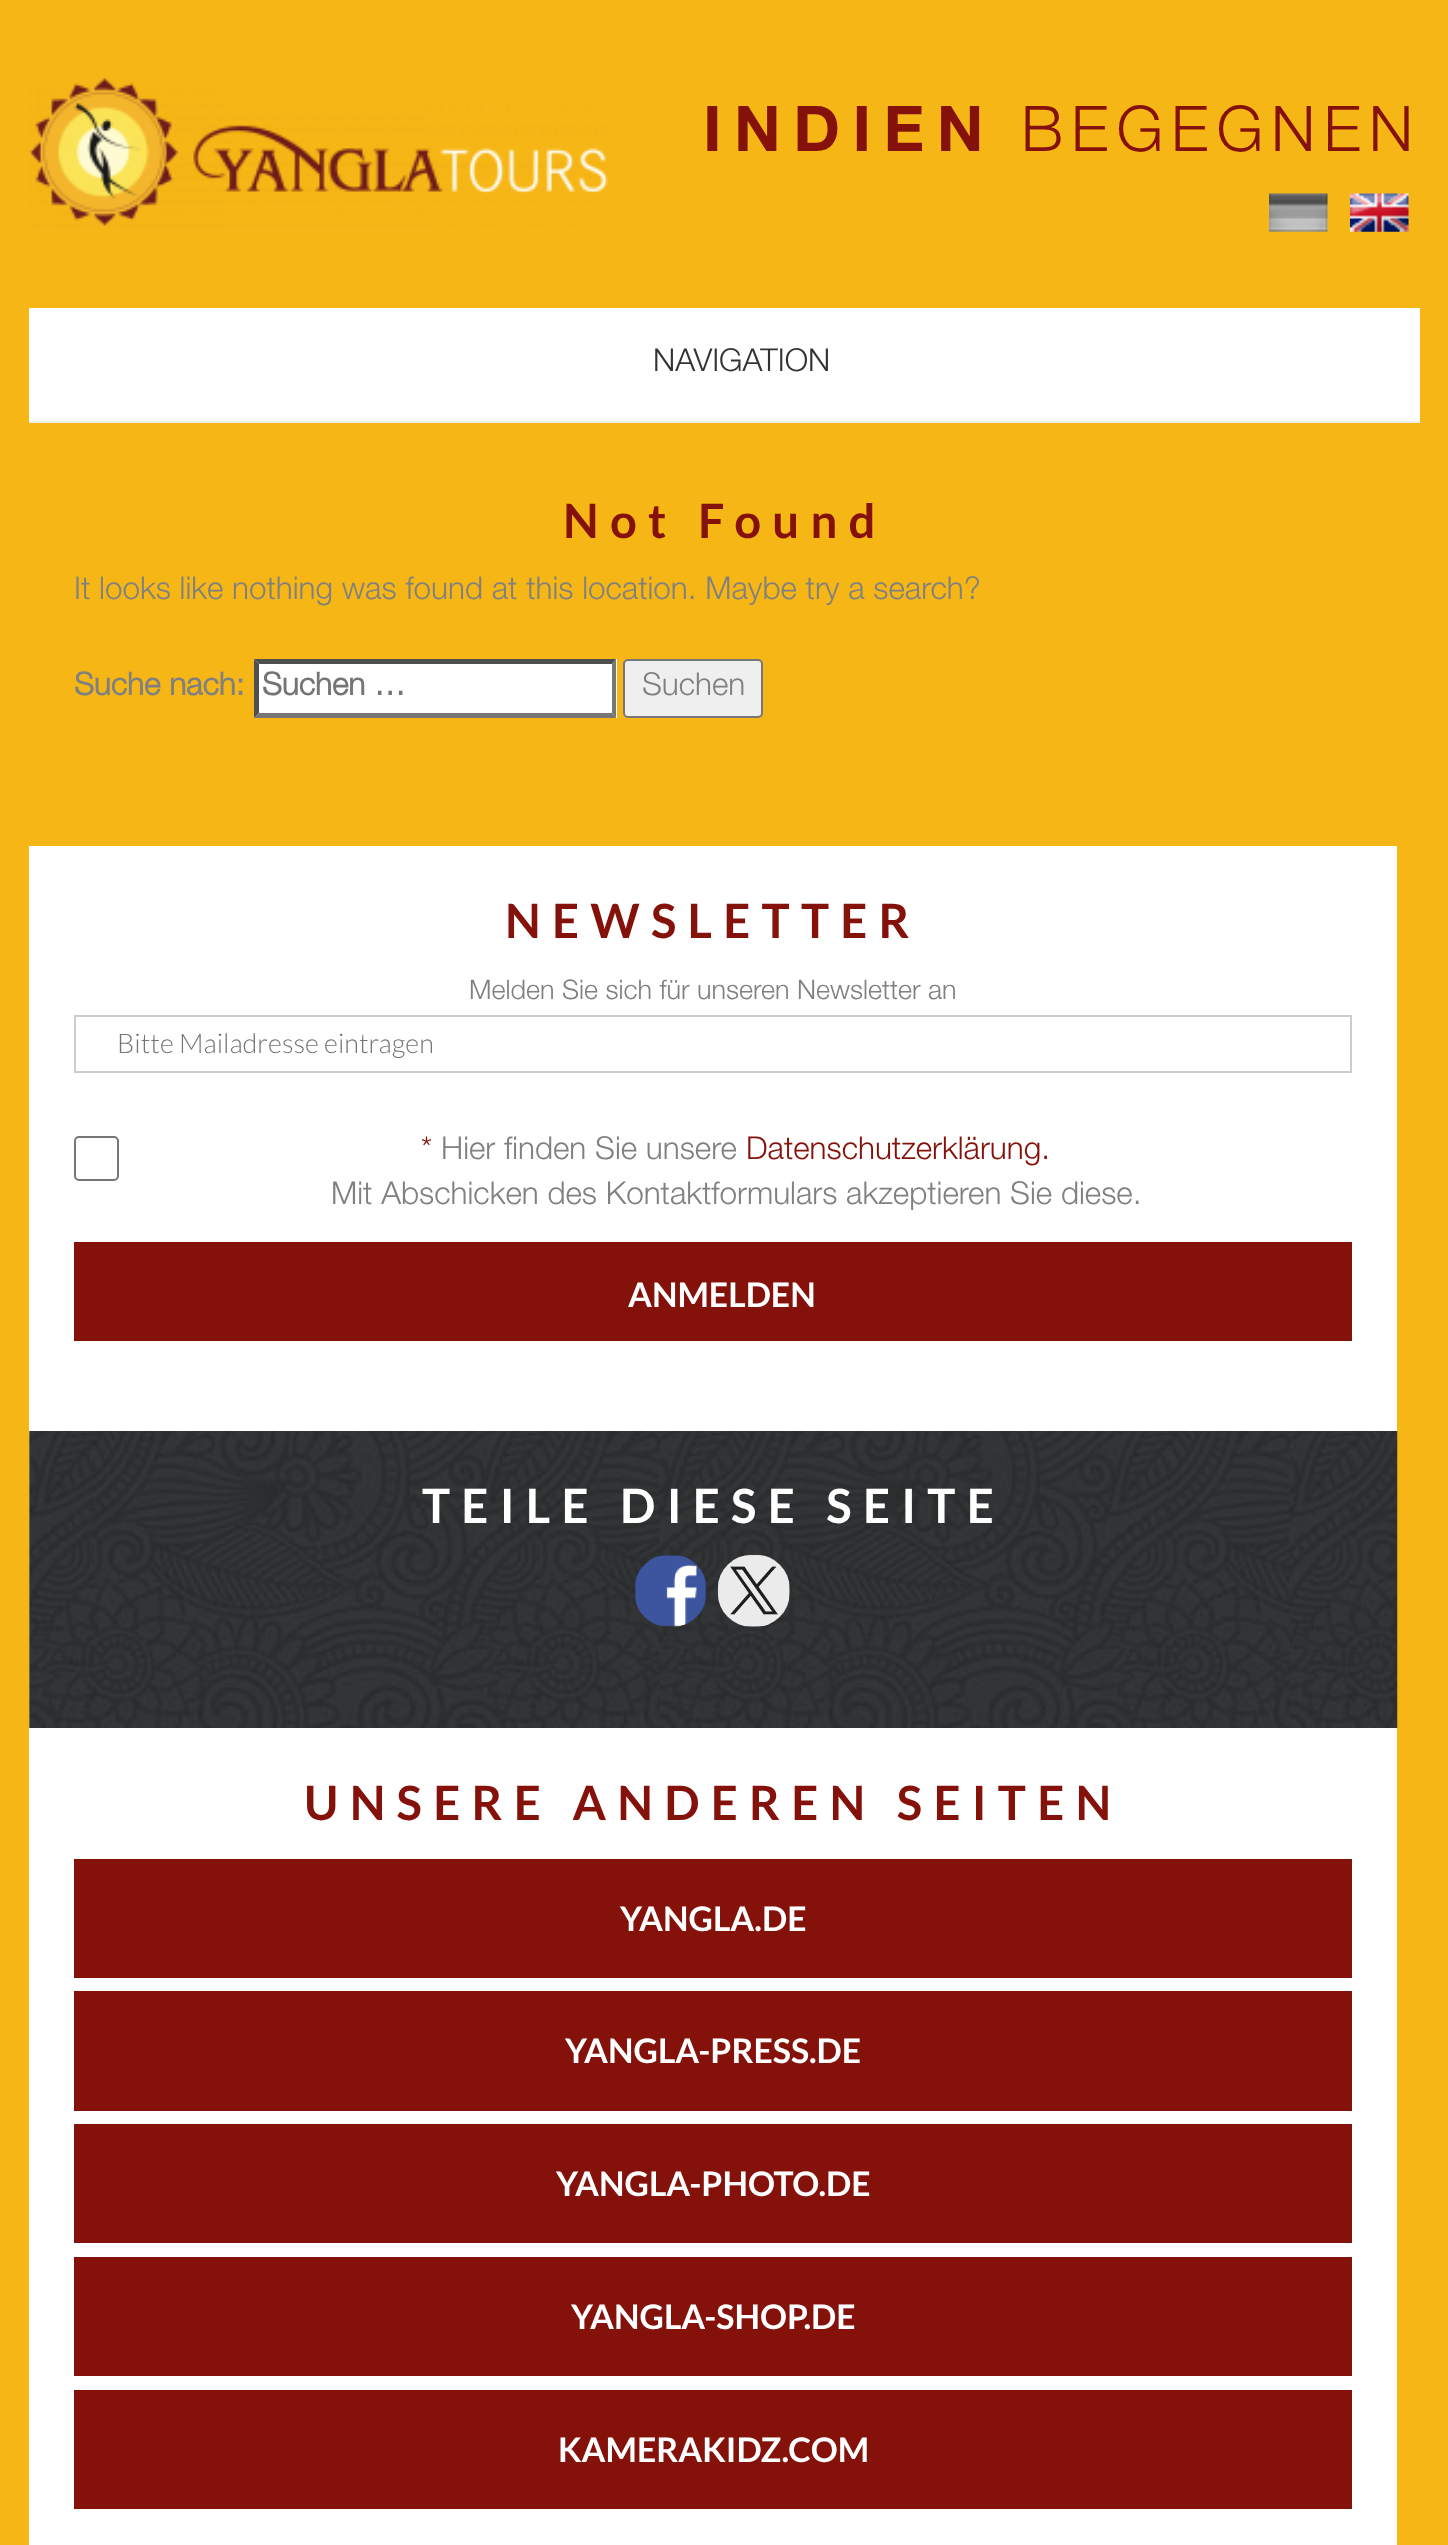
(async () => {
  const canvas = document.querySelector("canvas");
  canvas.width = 1448;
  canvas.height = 2545;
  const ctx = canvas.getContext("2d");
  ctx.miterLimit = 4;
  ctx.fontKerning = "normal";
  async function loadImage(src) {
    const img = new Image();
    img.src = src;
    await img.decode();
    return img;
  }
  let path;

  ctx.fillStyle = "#f6b616";
  ctx.fillRect(0, 0, 1448, 2545);
  ctx.drawImage(await loadImage("img/1.png"), 29, 77, 579, 150);
  ctx.drawImage(await loadImage("img/2.png"), 1269, 193, 59, 39);
  ctx.drawImage(await loadImage("img/3.png"), 1350, 193, 59, 39);
  for (const [x, y, w, h, color] of [
    [29, 308, 1391, 113, "#ffffff"],
    [29, 421, 1391, 2, "#eeeeee"],
    [254, 659, 363, 59, "#ffffff"],
  ]) {
    ctx.fillStyle = color;
    ctx.fillRect(x, y, w, h);
  }
  ctx.fillStyle = "#4f4f4f";
  path = new Path2D("M254 659H616L612 664H259Z");
  ctx.fill(path);
  ctx.fillStyle = "#767676";
  path = new Path2D("M616 659V718L612 713V664Z");
  ctx.fill(path);
  path = new Path2D("M616 718H254L259 713H612Z");
  ctx.fill(path);
  ctx.fillStyle = "#4f4f4f";
  path = new Path2D("M254 718V659L259 664V713Z");
  ctx.fill(path);
  ctx.fillStyle = "#efefef";
  ctx.beginPath();
  ctx.roundRect(624, 660, 138, 57, 4);
  ctx.fill();
  ctx.strokeStyle = "#767676";
  ctx.lineWidth = 2;
  ctx.stroke();
  ctx.fillStyle = "#ffffff";
  ctx.fillRect(29, 846, 1368, 1699);
  ctx.strokeStyle = "#cccccc";
  ctx.strokeRect(75, 1016, 1276, 56);
  ctx.beginPath();
  ctx.roundRect(75, 1137, 43, 43, 4);
  ctx.strokeStyle = "#767676";
  ctx.stroke();
  ctx.fillStyle = "#84110a";
  ctx.fillRect(74, 1242, 1278, 99);
  ctx.drawImage(await loadImage("img/4.png"), 29, 1431, 1369, 297);
  ctx.drawImage(await loadImage("img/5.png"), 634, 1555, 73, 72);
  ctx.drawImage(await loadImage("img/6.png"), 717, 1554, 73, 73);
  for (const [x, y, w, h, color] of [
    [74, 1859, 1278, 119, "#84110a"],
    [74, 1991, 1278, 120, "#84110a"],
    [74, 2124, 1278, 119, "#84110a"],
    [74, 2257, 1278, 119, "#84110a"],
    [74, 2390, 1278, 119, "#84110a"],
  ]) {
    ctx.fillStyle = color;
    ctx.fillRect(x, y, w, h);
  }
  ctx.letterSpacing = "12.5px";
  ctx.font = "bold 63px Helvetica Neue";
  ctx.fillText("INDIEN", 703, 151);
  ctx.letterSpacing = "8px";
  ctx.font = "300 63px Helvetica Neue";
  ctx.fillText("BEGEGNEN", 1021, 151);
  ctx.letterSpacing = "0px";
  ctx.font = "300 31.5px Helvetica Neue";
  ctx.fillStyle = "#333333";
  ctx.fillText("NAVIGATION", 653, 371);
  ctx.letterSpacing = "11.25px";
  ctx.font = "bold 47.25px Lato";
  ctx.fillStyle = "#84110a";
  ctx.fillText("Not Found", 563, 538);
  ctx.letterSpacing = "0px";
  ctx.font = "300 31.5px Helvetica Neue";
  ctx.fillStyle = "#808080";
  ctx.fillText("It looks like nothing was found at this location. Maybe try a search?", 74, 599);
  ctx.font = "bold 31.5px 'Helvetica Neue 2'";
  ctx.fillText("Suche nach:", 74, 695);
  ctx.fillStyle = "#757575";
  ctx.fillText("Suchen …", 262, 695);
  ctx.font = "300 31.5px Helvetica Neue";
  ctx.fillStyle = "#808080";
  ctx.fillText("Suchen", 642, 695);
  ctx.letterSpacing = "11.25px";
  ctx.font = "bold 47.25px Lato";
  ctx.fillStyle = "#84110a";
  ctx.fillText("NEWSLETTER", 505, 938);
  ctx.letterSpacing = "0px";
  ctx.font = "300 27px Helvetica Neue";
  ctx.fillStyle = "#808080";
  ctx.fillText("Melden Sie sich für unseren Newsletter an", 469, 999);
  ctx.font = "300 27px Lato";
  ctx.fillStyle = "#757575";
  ctx.fillText("Bitte Mailadresse eintragen", 117, 1053);
  ctx.font = "300 31.5px Helvetica Neue";
  ctx.fillStyle = "#84110a";
  ctx.fillText("*", 421, 1159);
  ctx.fillStyle = "#808080";
  ctx.fillText("Hier finden Sie unsere", 441, 1159);
  ctx.fillStyle = "#84110a";
  ctx.fillText("Datenschutzerklärung.", 746, 1159);
  ctx.fillStyle = "#808080";
  ctx.fillText("Mit Abschicken des Kontaktformulars akzeptieren Sie diese.", 331, 1204);
  ctx.font = "bold 33.75px Lato";
  ctx.fillStyle = "#ffffff";
  ctx.fillText("ANMELDEN", 628, 1307);
  ctx.letterSpacing = "11.25px";
  ctx.font = "bold 47.25px Lato";
  ctx.fillText("TEILE DIESE SEITE", 422, 1523);
  ctx.fillStyle = "#84110a";
  ctx.fillText("UNSERE ANDEREN SEITEN", 304, 1820);
  ctx.letterSpacing = "0px";
  ctx.font = "bold 33.75px Lato";
  ctx.fillStyle = "#ffffff";
  for (const [text, x, y] of [
    ["YANGLA.DE", 620, 1931],
    ["YANGLA-PRESS.DE", 565, 2063],
    ["YANGLA-PHOTO.DE", 556, 2196],
    ["YANGLA-SHOP.DE", 571, 2329],
    ["KAMERAKIDZ.COM", 558, 2462],
  ]) {
    ctx.fillText(text, x, y);
  }
})();
